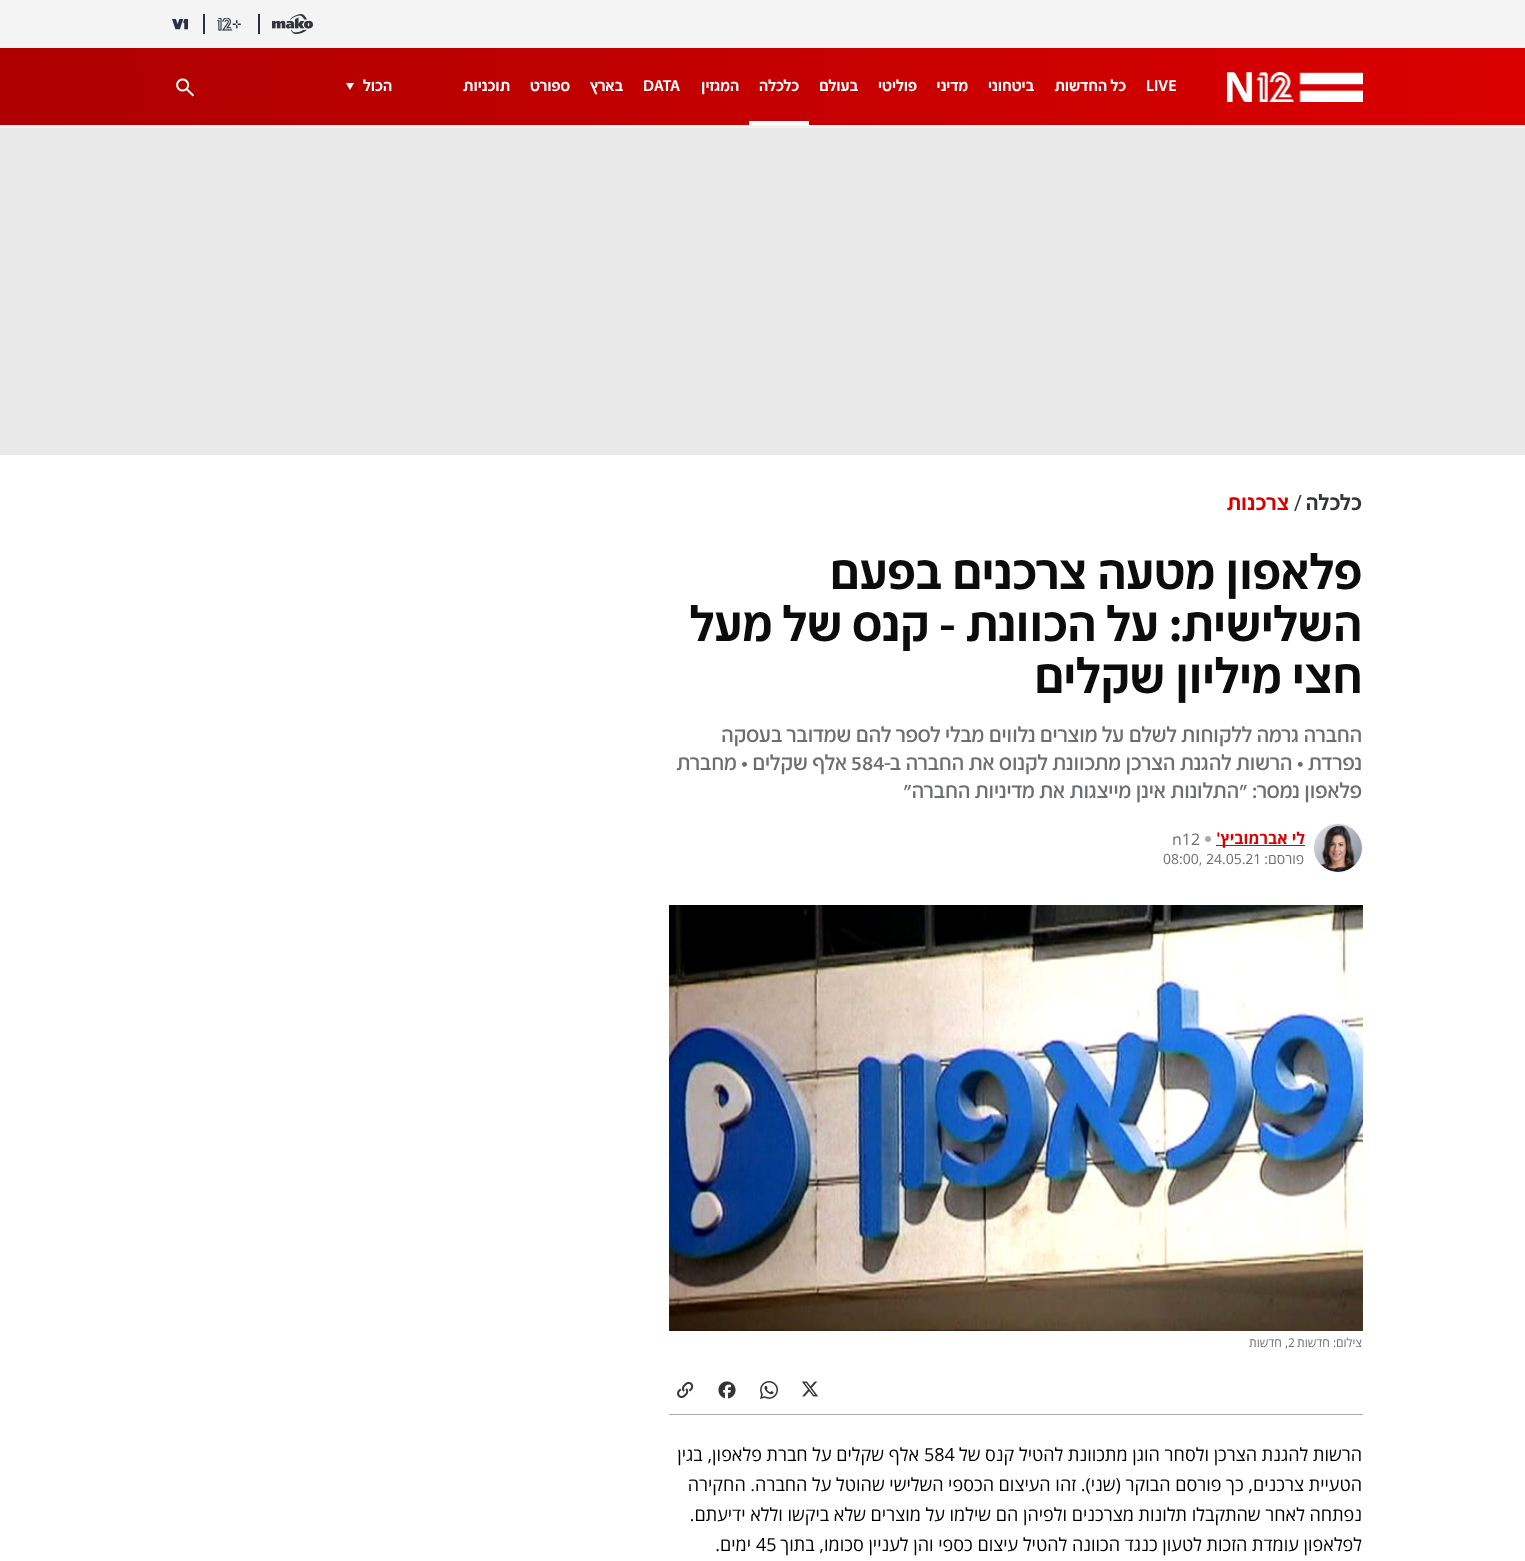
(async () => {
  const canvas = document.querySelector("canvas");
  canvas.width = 1525;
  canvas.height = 1561;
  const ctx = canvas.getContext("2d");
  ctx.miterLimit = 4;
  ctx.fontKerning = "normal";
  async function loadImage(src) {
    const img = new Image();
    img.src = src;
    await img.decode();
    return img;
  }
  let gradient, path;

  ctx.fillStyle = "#e9e9e9";
  ctx.fillRect(0, 0, 1525, 1561);
  ctx.fillStyle = "#f4f4f4";
  ctx.fillRect(0, 0, 1525, 48);
  ctx.drawImage(await loadImage("img/1.png"), 272, 14, 41, 20);
  ctx.fillStyle = "#273044";
  ctx.fillRect(258, 14, 2, 20);
  ctx.drawImage(await loadImage("img/2.png"), 217, 18, 24, 13);
  ctx.fillRect(203, 14, 2, 20);
  ctx.drawImage(await loadImage("img/3.png"), 172, 19, 16, 11);
  gradient = ctx.createLinearGradient(1525, 60, -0.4, 113);
  gradient.addColorStop(0, "#db0000");
  gradient.addColorStop(1, "#ae0000");
  ctx.fillStyle = gradient;
  ctx.fillRect(0, 48, 1525, 77);
  ctx.drawImage(await loadImage("img/4.png"), 1227, 72, 136, 30);
  ctx.fillStyle = "#ffffff";
  ctx.fillRect(749, 121, 60, 4);
  path = new Path2D("M346 83H354L350 90Z");
  ctx.fill(path);
  ctx.drawImage(await loadImage("img/5.png"), 176, 78, 18, 19);
  ctx.fillStyle = "#f2f2f2";
  ctx.fillRect(0, 125, 1525, 3);
  ctx.fillStyle = "#ffffff";
  ctx.fillRect(0, 455, 1525, 1106);
  ctx.fillStyle = "#e0e0e0";
  ctx.beginPath();
  ctx.arc(1338, 848, 24.5, 0, Math.PI * 2);
  ctx.fill();
  ctx.strokeStyle = "#fafafa";
  ctx.stroke();
  ctx.drawImage(await loadImage("img/6.png"), 1314, 824, 48, 48);
  ctx.fillStyle = "#db0000";
  ctx.fillRect(1216, 845, 89, 1);
  ctx.fillStyle = "#aaacaf";
  ctx.beginPath();
  ctx.arc(1208, 839, 3, 0, Math.PI * 2);
  ctx.fill();
  ctx.drawImage(await loadImage("img/7.png"), 669, 905, 694, 426);
  ctx.fillRect(669, 1414, 694, 1);
  ctx.drawImage(await loadImage("img/8.png"), 801, 1381, 18, 16);
  ctx.drawImage(await loadImage("img/9.png"), 760, 1381, 18, 18);
  ctx.drawImage(await loadImage("img/10.png"), 718, 1381, 18, 18);
  ctx.drawImage(await loadImage("img/11.png"), 677, 1381, 17, 17);
  ctx.font = "500 16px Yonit";
  ctx.fillStyle = "#ffffff";
  ctx.fillText("LIVE", 1146, 91);
  ctx.direction = "rtl";
  for (const [text, x, y] of [
    ["כל החדשות", 1126, 91],
    ["ביטחוני", 1034, 91],
    ["מדיני", 968, 91],
    ["פוליטי", 917, 91],
    ["בעולם", 858, 91],
    ["כלכלה", 799, 91],
    ["המגזין", 739, 91],
  ]) {
    ctx.fillText(text, x, y);
  }
  ctx.direction = "ltr";
  ctx.fillText("DATA", 643, 91);
  ctx.direction = "rtl";
  for (const [text, x, y] of [
    ["בארץ", 623, 91],
    ["ספורט", 570, 91],
    ["תוכניות", 510, 91],
    ["הכול", 392, 91],
  ]) {
    ctx.fillText(text, x, y);
  }
  ctx.letterSpacing = "0.25px";
  ctx.font = "500 22px Yonit";
  ctx.fillStyle = "#333538";
  ctx.fillText("כלכלה", 1362, 510);
  ctx.letterSpacing = "0px";
  ctx.direction = "ltr";
  ctx.font = "22px Yonit";
  ctx.fillText("/", 1294, 510);
  ctx.letterSpacing = "0.25px";
  ctx.direction = "rtl";
  ctx.font = "500 22px Yonit";
  ctx.fillStyle = "#db0000";
  ctx.fillText("צרכנות", 1289, 510);
  ctx.letterSpacing = "0px";
  ctx.font = "500 50px Yonit";
  ctx.fillStyle = "#0c0c0c";
  for (const [text, x, y] of [
    ["פלאפון מטעה צרכנים בפעם", 1362, 589],
    ["השלישית: על הכוונת - קנס של מעל", 1362, 641],
    ["חצי מיליון שקלים", 1362, 693],
  ]) {
    ctx.fillText(text, x, y);
  }
  ctx.font = "22px Yonit";
  ctx.fillStyle = "#6c6e70";
  ctx.fillText("החברה גרמה ללקוחות לשלם על מוצרים נלווים מבלי לספר להם שמדובר בעסקה", 1362, 742);
  ctx.fillText("נפרדת • הרשות להגנת הצרכן מתכוונת לקנוס את החברה ב-", 1362, 770);
  ctx.direction = "ltr";
  ctx.fillText("584", 851, 770);
  ctx.direction = "rtl";
  ctx.fillText("אלף שקלים • מחברת", 847, 770);
  ctx.fillText("פלאפון נמסר: \"התלונות אינן מייצגות את מדיניות החברה\"", 1362, 798);
  ctx.font = "bold 16px Open Sans";
  ctx.fillStyle = "#db0000";
  ctx.fillText("לי אברמוביץ'", 1305, 844);
  ctx.direction = "ltr";
  ctx.font = "16px Open Sans";
  ctx.fillStyle = "#6c6e70";
  ctx.fillText("n12", 1172, 845);
  ctx.direction = "rtl";
  ctx.font = "14px Open Sans";
  ctx.fillText("פורסם:", 1304, 864);
  ctx.direction = "ltr";
  ctx.fillText("08:00, 24.05.21", 1163, 864);
  ctx.direction = "rtl";
  ctx.font = "12px Open Sans";
  ctx.fillText("צילום: חדשות", 1362, 1347);
  ctx.direction = "ltr";
  ctx.fillText("2", 1288, 1347);
  ctx.direction = "rtl";
  ctx.fillText(", חדשות", 1288, 1347);
  ctx.font = "18px Open Sans";
  ctx.fillStyle = "#000000";
  ctx.fillText("הרשות להגנת הצרכן ולסחר הוגן מתכוונת להטיל קנס של", 1362, 1461);
  ctx.direction = "ltr";
  ctx.fillText("584", 924, 1461);
  ctx.direction = "rtl";
  for (const [text, x, y] of [
    ["אלף שקלים על חברת פלאפון, בגין", 919, 1461],
    ["הטעיית צרכנים, כך פורסם הבוקר (שני). זהו העיצום הכספי השלישי שהוטל על החברה. החקירה", 1362, 1491],
    ["נפתחה לאחר שהתקבלו תלונות מצרכנים ולפיהן הם שילמו על מוצרים שלא ביקשו וללא ידיעתם.", 1362, 1521],
    ["לפלאפון עומדת הזכות לטעון כנגד הכוונה להטיל עיצום כספי והן לעניין סכומו, בתוך", 1362, 1551],
  ]) {
    ctx.fillText(text, x, y);
  }
  ctx.direction = "ltr";
  ctx.fillText("45", 756, 1551);
  ctx.direction = "rtl";
  ctx.fillText("ימים.", 751, 1551);
})();
